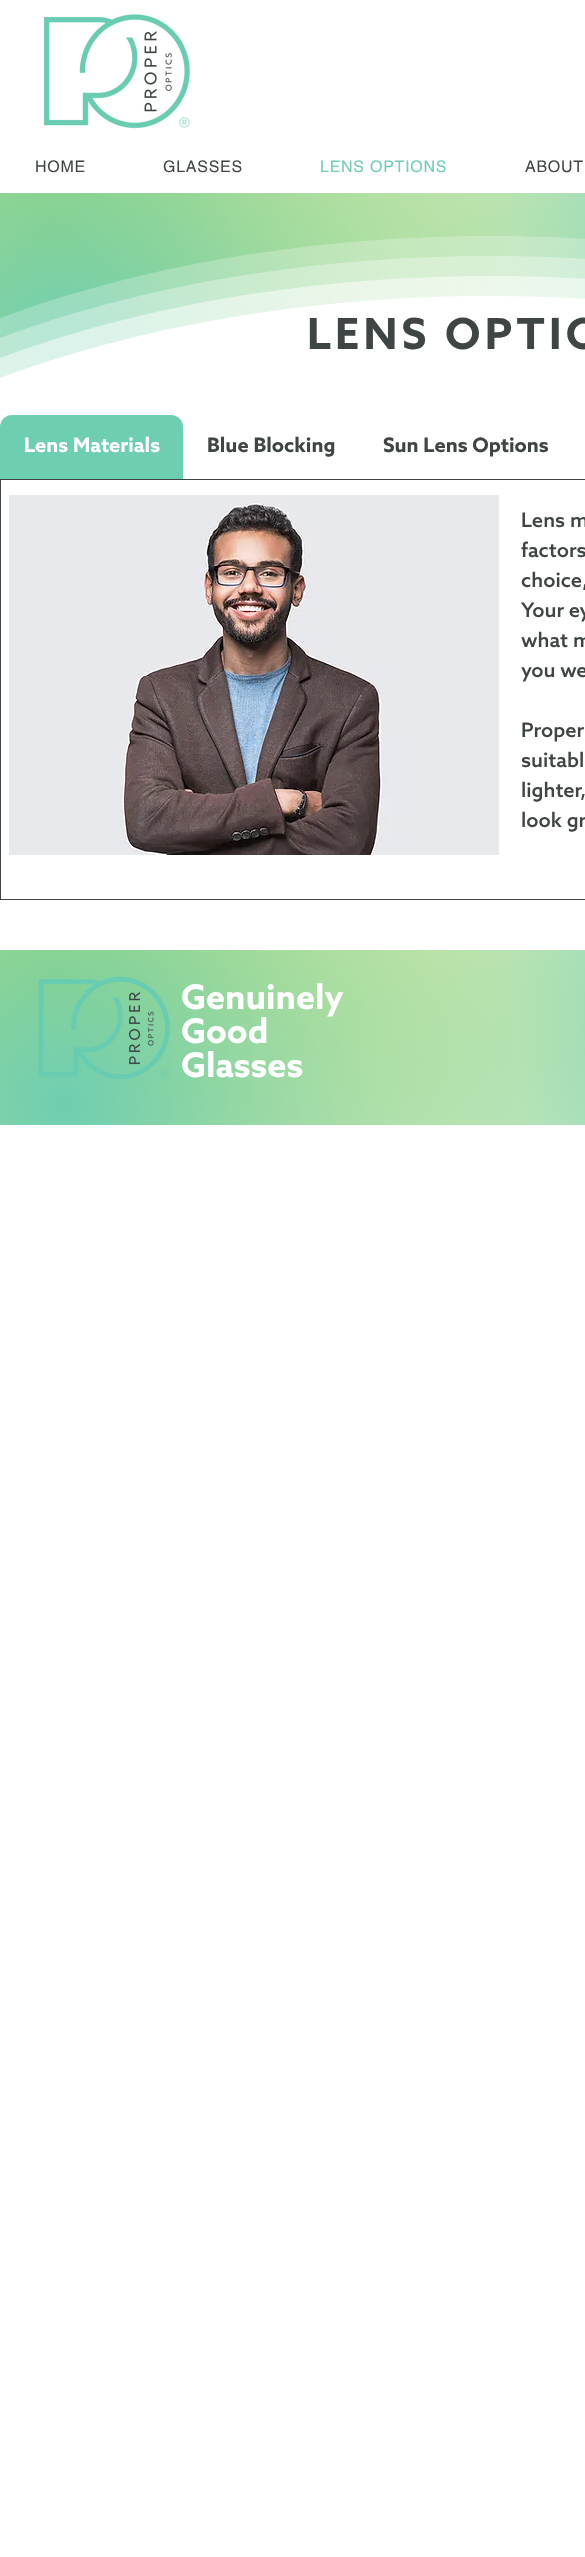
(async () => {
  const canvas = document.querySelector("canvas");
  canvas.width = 585;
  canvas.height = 2557;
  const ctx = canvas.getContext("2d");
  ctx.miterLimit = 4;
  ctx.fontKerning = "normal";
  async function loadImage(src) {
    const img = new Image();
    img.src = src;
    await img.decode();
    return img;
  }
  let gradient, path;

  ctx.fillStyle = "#ffffff";
  ctx.fillRect(0, 0, 585, 2557);
  ctx.drawImage(await loadImage("img/1.png"), 43, 14, 147, 115);
  gradient = ctx.createRadialGradient(767, 278, 0, 767, 278, 774);
  gradient.addColorStop(0, "#6eceb2");
  gradient.addColorStop(0.7, "#ffffff");
  ctx.fillStyle = gradient;
  ctx.fillRect(235, 193, 350, 185);
  gradient = ctx.createRadialGradient(54, 219, 0, 54, 219, 940);
  gradient.addColorStop(0, "#bada55");
  gradient.addColorStop(0.7, "rgba(186, 218, 85, 0)");
  ctx.fillStyle = gradient;
  ctx.fillRect(0, 193, 585, 185);
  gradient = ctx.createRadialGradient(64, 356, 0, 64, 356, 931);
  gradient.addColorStop(0, "rgba(110, 206, 178, 0.99)");
  gradient.addColorStop(0.5, "rgba(110, 206, 178, 0)");
  ctx.fillStyle = gradient;
  ctx.fillRect(0, 193, 517, 185);
  ctx.drawImage(await loadImage("img/2.png"), 0, 236, 585, 82);
  ctx.fillStyle = "rgba(255, 255, 255, 0.25)";
  ctx.fillRect(0, 318, 228, 60);
  ctx.drawImage(await loadImage("img/3.png"), 0, 256, 585, 82);
  ctx.fillStyle = "rgba(255, 255, 255, 0.33)";
  ctx.fillRect(0, 338, 131, 40);
  ctx.drawImage(await loadImage("img/4.png"), 0, 276, 585, 82);
  ctx.fillStyle = "rgba(255, 255, 255, 0.5)";
  ctx.fillRect(0, 358, 59, 20);
  ctx.fillStyle = "#ffffff";
  path = new Path2D("M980 378C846 328 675 296 490 296C305 296 134 328 0 378Z");
  ctx.fill(path);
  ctx.fillStyle = "#6eceb2";
  ctx.beginPath();
  ctx.roundRect(0, 415, 183, 64, [12, 12, 0, 0]);
  ctx.fill();
  ctx.strokeStyle = "#3f4444";
  ctx.strokeRect(0.5, 479.5, 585, 420);
  ctx.drawImage(await loadImage("img/5.png"), 9, 495, 490, 360);
  gradient = ctx.createRadialGradient(767, 1030, 0, 767, 1030, 773);
  gradient.addColorStop(0, "#6eceb2");
  gradient.addColorStop(0.7, "#ffffff");
  ctx.fillStyle = gradient;
  ctx.fillRect(235, 950, 350, 175);
  gradient = ctx.createRadialGradient(54, 974, 0, 54, 974, 938);
  gradient.addColorStop(0, "#bada55");
  gradient.addColorStop(0.7, "rgba(186, 218, 85, 0)");
  ctx.fillStyle = gradient;
  ctx.fillRect(0, 950, 585, 175);
  gradient = ctx.createRadialGradient(64, 1104, 0, 64, 1104, 929);
  gradient.addColorStop(0, "rgba(110, 206, 178, 0.99)");
  gradient.addColorStop(0.5, "rgba(110, 206, 178, 0)");
  ctx.fillStyle = gradient;
  ctx.fillRect(0, 950, 513, 175);
  ctx.drawImage(await loadImage("img/6.png"), 38, 976, 132, 103);
  ctx.letterSpacing = "0.75px";
  ctx.font = "16px helvetica";
  ctx.fillStyle = "#3f4444";
  ctx.fillText("HOME", 35, 172);
  ctx.fillText("GLASSES", 163, 172);
  ctx.fillStyle = "#6eceb2";
  ctx.fillText("LENS OPTIONS", 320, 172);
  ctx.fillStyle = "#3f4444";
  ctx.fillText("ABOUT", 525, 172);
  ctx.letterSpacing = "4.25px";
  ctx.font = "bold 43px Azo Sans";
  ctx.fillText("LENS OPTIO", 307, 349);
  ctx.letterSpacing = "0px";
  ctx.font = "bold 20px Azo Sans";
  ctx.fillStyle = "#ffffff";
  ctx.fillText("Lens Materials", 24, 452);
  ctx.fillStyle = "#3f4444";
  ctx.fillText("Blue Blocking", 207, 452);
  ctx.fillText("Sun Lens Options", 383, 452);
  ctx.font = "500 20px Azo Sans";
  for (const [text, x, y] of [
    ["Lens m", 521, 527],
    ["factors", 521, 557],
    ["choice,", 521, 587],
    ["Your ey", 521, 617],
    ["what m", 521, 647],
    ["you we", 521, 677],
    ["Proper", 521, 737],
    ["suitabl", 521, 767],
    ["lighter,", 521, 797],
    ["look gr", 521, 827],
  ]) {
    ctx.fillText(text, x, y);
  }
  ctx.font = "bold 34px Azo Sans";
  ctx.fillStyle = "#ffffff";
  for (const [text, x, y] of [
    ["Genuinely", 181, 1009],
    ["Good", 181, 1043],
    ["Glasses", 181, 1077],
  ]) {
    ctx.fillText(text, x, y);
  }
})();
